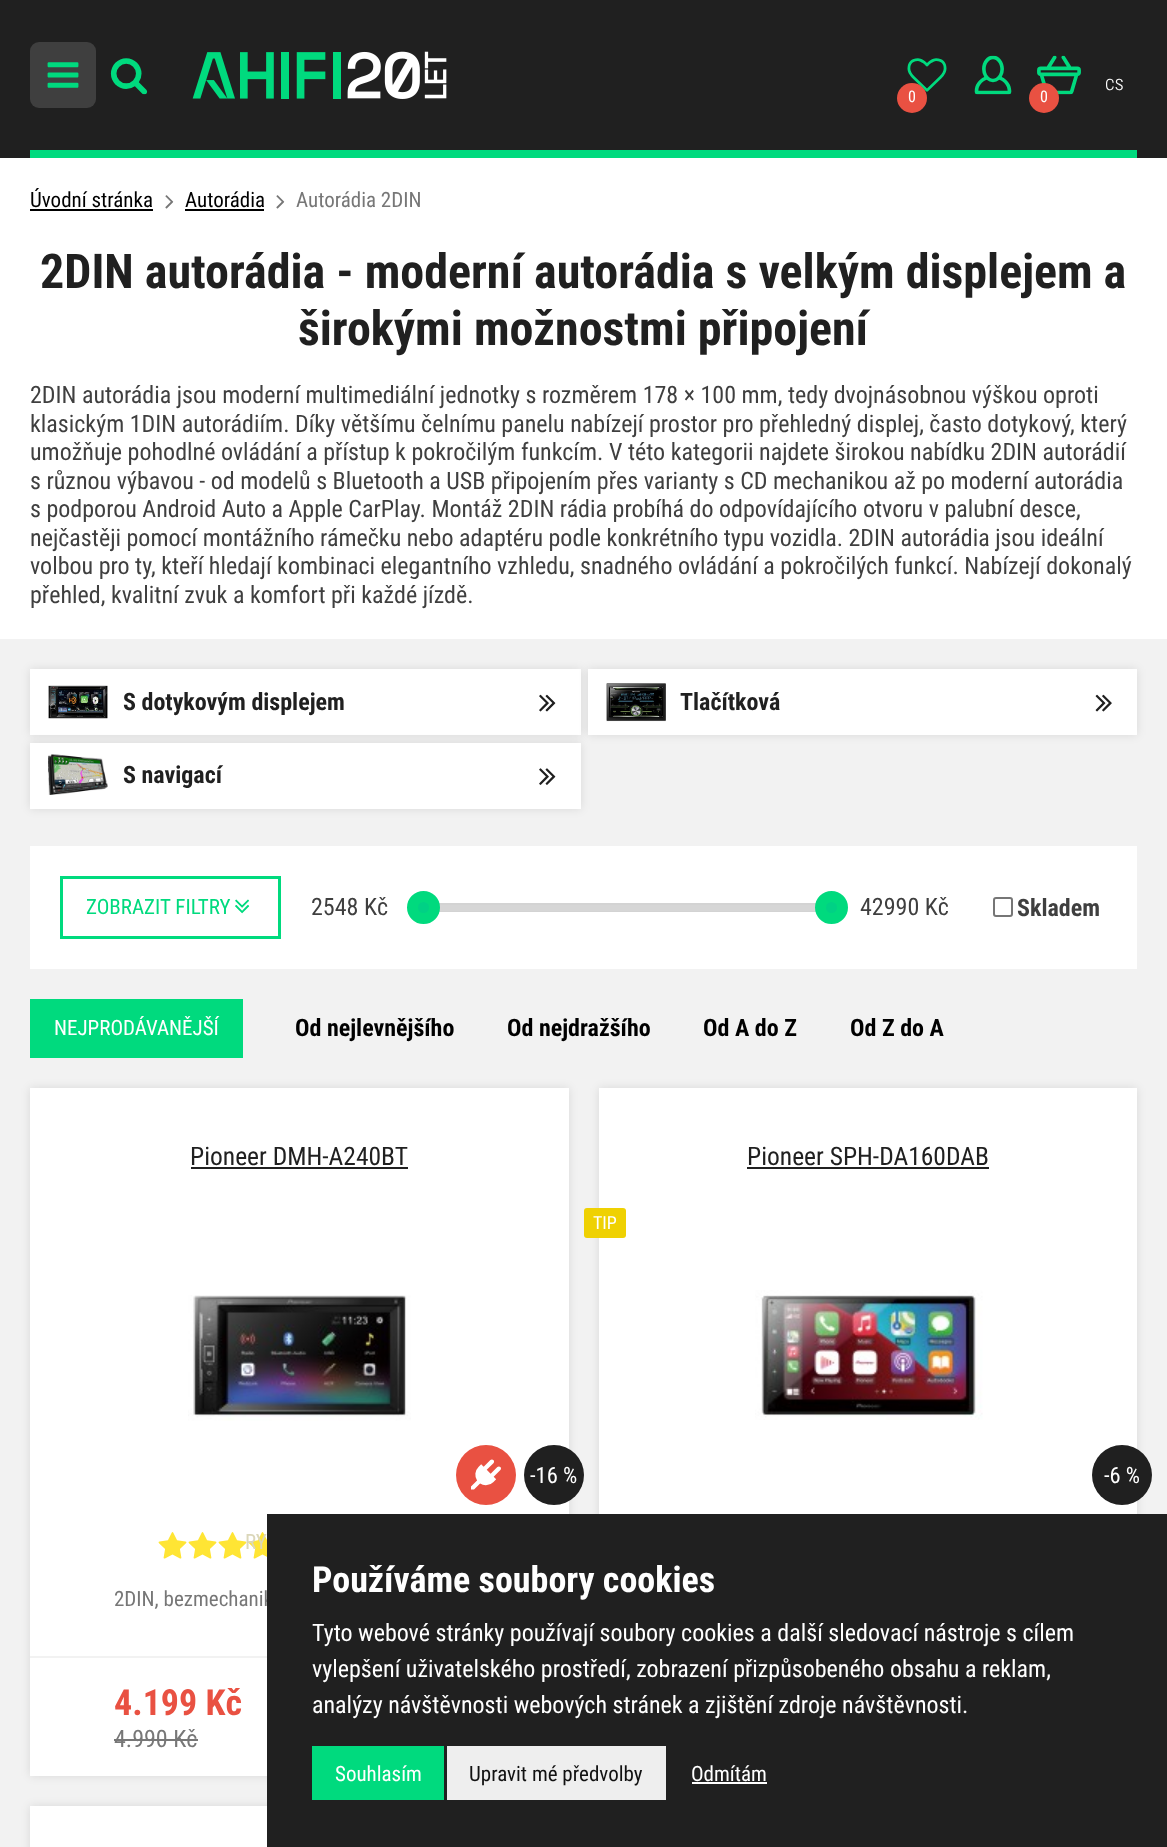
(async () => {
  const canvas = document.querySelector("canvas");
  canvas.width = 1167;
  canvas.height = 1847;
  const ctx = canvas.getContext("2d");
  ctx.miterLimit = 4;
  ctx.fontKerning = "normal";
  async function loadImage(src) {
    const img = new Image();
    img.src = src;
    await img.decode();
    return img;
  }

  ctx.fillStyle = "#ffffff";
  ctx.fillRect(0, 0, 1167, 1847);
  ctx.fillStyle = "#202020";
  ctx.fillRect(0, 0, 1167, 158);
  ctx.fillStyle = "#00da7e";
  ctx.fillRect(30, 150, 1107, 8);
  ctx.fillStyle = "#3f3f3f";
  ctx.beginPath();
  ctx.roundRect(30, 42, 66, 66, 9);
  ctx.fill();
  ctx.drawImage(await loadImage("img/1.png"), 47, 62, 32, 26);
  ctx.drawImage(await loadImage("img/2.png"), 110, 58, 38, 37);
  ctx.drawImage(await loadImage("img/3.png"), 192, 51, 255, 48);
  ctx.drawImage(await loadImage("img/4.png"), 974, 55, 38, 40);
  ctx.drawImage(await loadImage("img/5.png"), 907, 58, 40, 34);
  ctx.fillStyle = "#e95142";
  ctx.beginPath();
  ctx.arc(912, 98, 15, 0, Math.PI * 2);
  ctx.fill();
  ctx.drawImage(await loadImage("img/6.png"), 1037, 55, 44, 40);
  ctx.beginPath();
  ctx.arc(1044, 98, 15, 0, Math.PI * 2);
  ctx.fill();
  ctx.fillStyle = "#000000";
  ctx.fillRect(30, 209, 123, 2);
  ctx.drawImage(await loadImage("img/7.png"), 165, 195, 9, 14);
  ctx.fillRect(185, 209, 79, 2);
  ctx.drawImage(await loadImage("img/7.png"), 276, 195, 9, 14);
  ctx.fillStyle = "#f2f2f2";
  ctx.fillRect(0, 639, 1167, 1208);
  ctx.fillStyle = "rgba(0, 0, 0, 0.1)";
  ctx.filter = "blur(5px)";
  ctx.beginPath();
  ctx.rect(30, 669, 551, 66);
  ctx.fill();
  ctx.filter = "none";
  ctx.fillStyle = "#ffffff";
  ctx.fillRect(30, 669, 551, 66);
  ctx.drawImage(await loadImage("img/8.png"), 48, 685, 60, 34);
  ctx.drawImage(await loadImage("img/9.png"), 539, 694, 17, 18);
  ctx.fillStyle = "rgba(0, 0, 0, 0.1)";
  ctx.filter = "blur(5px)";
  ctx.beginPath();
  ctx.rect(588, 669, 549, 66);
  ctx.fill();
  ctx.filter = "none";
  ctx.fillStyle = "#ffffff";
  ctx.fillRect(588, 669, 549, 66);
  ctx.drawImage(await loadImage("img/10.png"), 606, 683, 60, 39);
  ctx.drawImage(await loadImage("img/11.png"), 1095, 694, 17, 18);
  ctx.fillStyle = "rgba(0, 0, 0, 0.1)";
  ctx.filter = "blur(5px)";
  ctx.beginPath();
  ctx.rect(30, 743, 551, 66);
  ctx.fill();
  ctx.filter = "none";
  ctx.fillStyle = "#ffffff";
  ctx.fillRect(30, 743, 551, 66);
  ctx.drawImage(await loadImage("img/12.png"), 48, 754, 60, 41);
  ctx.drawImage(await loadImage("img/13.png"), 539, 768, 17, 17);
  ctx.fillRect(30, 846, 1107, 123);
  ctx.strokeStyle = "#00da7e";
  ctx.lineWidth = 3;
  ctx.strokeRect(61.5, 877.5, 218, 60);
  ctx.drawImage(await loadImage("img/14.png"), 235, 899, 15, 15);
  ctx.strokeStyle = "#d3d3d3";
  ctx.lineWidth = 2;
  ctx.strokeRect(420, 904, 409, 7);
  ctx.fillStyle = "#d6d6d6";
  ctx.fillRect(439, 905, 377, 6);
  ctx.fillStyle = "#00d185";
  ctx.beginPath();
  ctx.arc(423.5, 907.5, 11, 0, Math.PI * 2);
  ctx.fill();
  ctx.strokeStyle = "#00da7e";
  ctx.lineWidth = 11;
  ctx.stroke();
  ctx.beginPath();
  ctx.arc(831.5, 907.5, 11, 0, Math.PI * 2);
  ctx.fill();
  ctx.stroke();
  ctx.beginPath();
  ctx.roundRect(994, 898, 18, 18, 2);
  ctx.strokeStyle = "#767676";
  ctx.lineWidth = 2;
  ctx.stroke();
  ctx.fillStyle = "#00da7e";
  ctx.fillRect(30, 999, 213, 59);
  ctx.fillStyle = "rgba(0, 0, 0, 0.1)";
  ctx.filter = "blur(5px)";
  ctx.beginPath();
  ctx.rect(30, 1088, 539, 688);
  ctx.fill();
  ctx.filter = "none";
  ctx.fillStyle = "#ffffff";
  ctx.fillRect(30, 1088, 539, 688);
  ctx.fillStyle = "#202020";
  ctx.fillRect(191, 1167, 217, 2);
  ctx.drawImage(await loadImage("img/15.png"), 188, 1295, 223, 126);
  ctx.fillStyle = "#e95142";
  ctx.beginPath();
  ctx.arc(486, 1475, 30, 0, Math.PI * 2);
  ctx.fill();
  ctx.drawImage(await loadImage("img/16.png"), 471, 1459, 30, 31);
  ctx.fillStyle = "#202020";
  ctx.beginPath();
  ctx.arc(554, 1475, 30, 0, Math.PI * 2);
  ctx.fill();
  ctx.drawImage(await loadImage("img/17.png"), 158, 1532, 29, 27);
  ctx.drawImage(await loadImage("img/17.png"), 188, 1532, 29, 27);
  ctx.drawImage(await loadImage("img/17.png"), 218, 1532, 29, 27);
  ctx.drawImage(await loadImage("img/18.png"), 248, 1532, 19, 27);
  ctx.fillStyle = "#f2f2f2";
  ctx.fillRect(30, 1656, 237, 2);
  ctx.fillStyle = "#777777";
  ctx.fillRect(114, 1739, 84, 2);
  ctx.fillStyle = "rgba(0, 0, 0, 0.1)";
  ctx.filter = "blur(5px)";
  ctx.beginPath();
  ctx.rect(599, 1088, 538, 688);
  ctx.fill();
  ctx.filter = "none";
  ctx.fillStyle = "#ffffff";
  ctx.fillRect(599, 1088, 538, 426);
  ctx.fillStyle = "#202020";
  ctx.fillRect(747, 1167, 242, 2);
  ctx.fillStyle = "#efd102";
  ctx.beginPath();
  ctx.roundRect(584, 1208, 42, 30, 3);
  ctx.fill();
  ctx.drawImage(await loadImage("img/19.png"), 755, 1290, 228, 130);
  ctx.fillStyle = "#202020";
  ctx.beginPath();
  ctx.arc(1122, 1475, 30, 0, Math.PI * 2);
  ctx.fill();
  ctx.fillStyle = "rgba(0, 0, 0, 0.1)";
  ctx.filter = "blur(5px)";
  ctx.beginPath();
  ctx.rect(30, 1806, 539, 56);
  ctx.fill();
  ctx.filter = "none";
  ctx.fillStyle = "#ffffff";
  ctx.fillRect(30, 1806, 237, 41);
  ctx.font = "300 21px Roboto Condensed";
  ctx.fillText("cs", 1105, 90);
  ctx.font = "16px Roboto Condensed";
  ctx.fillText("0", 908, 102);
  ctx.fillText("0", 1040, 102);
  ctx.font = "21px Roboto Condensed";
  ctx.fillStyle = "#000000";
  ctx.fillText("Úvodní stránka", 30, 207);
  ctx.fillText("Autorádia", 185, 207);
  ctx.fillStyle = "#777777";
  ctx.fillText("Autorádia 2DIN", 296, 207);
  ctx.font = "bold 48px Roboto Condensed";
  ctx.fillStyle = "#202020";
  ctx.fillText("2DIN autorádia - moderní autorádia s velkým displejem a", 40, 288);
  ctx.fillText("širokými možnostmi připojení", 298, 345);
  ctx.font = "24px Roboto Condensed";
  ctx.fillStyle = "#3f3f3f";
  for (const [text, x, y] of [
    ["2DIN autorádia jsou moderní multimediální jednotky s rozměrem 178 × 100 mm, tedy dvojnásobnou výškou oproti", 30, 403],
    ["klasickým 1DIN autorádiím. Díky většímu čelnímu panelu nabízejí prostor pro přehledný displej, často dotykový, který", 30, 432],
    ["umožňuje pohodlné ovládání a přístup k pokročilým funkcím. V této kategorii najdete širokou nabídku 2DIN autorádií", 30, 460],
    ["s různou výbavou - od modelů s Bluetooth a USB připojením přes varianty s CD mechanikou až po moderní autorádia", 30, 489],
    ["s podporou Android Auto a Apple CarPlay. Montáž 2DIN rádia probíhá do odpovídajícího otvoru v palubní desce,", 30, 517],
    ["nejčastěji pomocí montážního rámečku nebo adaptéru podle konkrétního typu vozidla. 2DIN autorádia jsou ideální", 30, 546],
    ["volbou pro ty, kteří hledají kombinaci elegantního vzhledu, snadného ovládání a pokročilých funkcí. Nabízejí dokonalý", 30, 574],
    ["přehled, kvalitní zvuk a komfort při každé jízdě.", 30, 603],
  ]) {
    ctx.fillText(text, x, y);
  }
  ctx.font = "bold 24px Roboto Condensed";
  ctx.fillStyle = "#202020";
  for (const [text, x, y] of [
    ["S dotykovým displejem", 123, 710],
    ["Tlačítková", 680, 710],
    ["S navigací", 123, 783],
  ]) {
    ctx.fillText(text, x, y);
  }
  ctx.font = "21px Roboto Condensed";
  ctx.fillStyle = "#00da7e";
  ctx.fillText("ZOBRAZIT FILTRY", 86, 914);
  ctx.font = "24px Roboto Condensed";
  ctx.fillStyle = "#3f3f3f";
  ctx.fillText("2548 Kč", 311, 915);
  ctx.fillText("42990 Kč", 860, 915);
  ctx.font = "bold 24px Roboto Condensed";
  ctx.fillText("Skladem", 1017, 916);
  ctx.font = "21px Roboto Condensed";
  ctx.fillStyle = "#ffffff";
  ctx.fillText("NEJPRODÁVANĚJŠÍ", 54, 1035);
  ctx.font = "bold 24px Roboto Condensed";
  ctx.fillStyle = "#000000";
  for (const [text, x, y] of [
    ["Od nejlevnějšího", 295, 1036],
    ["Od nejdražšího", 507, 1036],
    ["Od A do Z", 703, 1036],
    ["Od Z do A", 850, 1036],
  ]) {
    ctx.fillText(text, x, y);
  }
  ctx.font = "25.5px Roboto Condensed";
  ctx.fillStyle = "#202020";
  ctx.fillText("Pioneer DMH-A240BT", 190, 1165);
  ctx.font = "22.5px Roboto Condensed";
  ctx.fillStyle = "#ffffff";
  ctx.fillText("-16 %", 530, 1483);
  ctx.font = "21px Roboto Condensed";
  ctx.fillStyle = "#dbd7ba";
  ctx.fillText("RY", 245, 1549);
  ctx.fillStyle = "#777777";
  ctx.fillText("2DIN, bezmechanik", 114, 1606);
  ctx.font = "bold 36px Roboto Condensed";
  ctx.fillStyle = "#e95142";
  ctx.fillText("4.199 Kč", 114, 1715);
  ctx.font = "24px Roboto Condensed";
  ctx.fillStyle = "#777777";
  ctx.fillText("4.990 Kč", 114, 1747);
  ctx.font = "25.5px Roboto Condensed";
  ctx.fillStyle = "#202020";
  ctx.fillText("Pioneer SPH-DA160DAB", 747, 1165);
  ctx.font = "18px Roboto Condensed";
  ctx.fillStyle = "#ffffff";
  ctx.fillText("TIP", 593, 1229);
  ctx.font = "22.5px Roboto Condensed";
  ctx.fillText("-6 %", 1104, 1483);
  ctx.fillStyle = "#202020";
  ctx.fillRect(267, 1514, 900, 333);
  ctx.font = "bold 36px Roboto Condensed";
  ctx.fillStyle = "#ffffff";
  ctx.fillText("Používáme soubory cookies", 312, 1592);
  ctx.font = "24px Roboto Condensed";
  for (const [text, x, y] of [
    ["Tyto webové stránky používají soubory cookies a další sledovací nástroje s cílem", 312, 1641],
    ["vylepšení uživatelského prostředí, zobrazení přizpůsobeného obsahu a reklam,", 312, 1677],
    ["analýzy návštěvnosti webových stránek a zjištění zdroje návštěvnosti.", 312, 1713],
  ]) {
    ctx.fillText(text, x, y);
  }
  ctx.fillStyle = "#00da7e";
  ctx.fillRect(312, 1746, 132, 54);
  ctx.font = "21px Roboto Condensed";
  ctx.fillStyle = "#ffffff";
  ctx.fillText("Souhlasím", 335, 1781);
  ctx.fillStyle = "#eeeeee";
  ctx.fillRect(447, 1746, 219, 54);
  ctx.fillStyle = "#111111";
  ctx.fillText("Upravit mé předvolby", 469, 1781);
  ctx.fillStyle = "#ffffff";
  ctx.fillText("Odmítám", 691, 1781);
  ctx.fillRect(692, 1782, 75, 2);
})();
